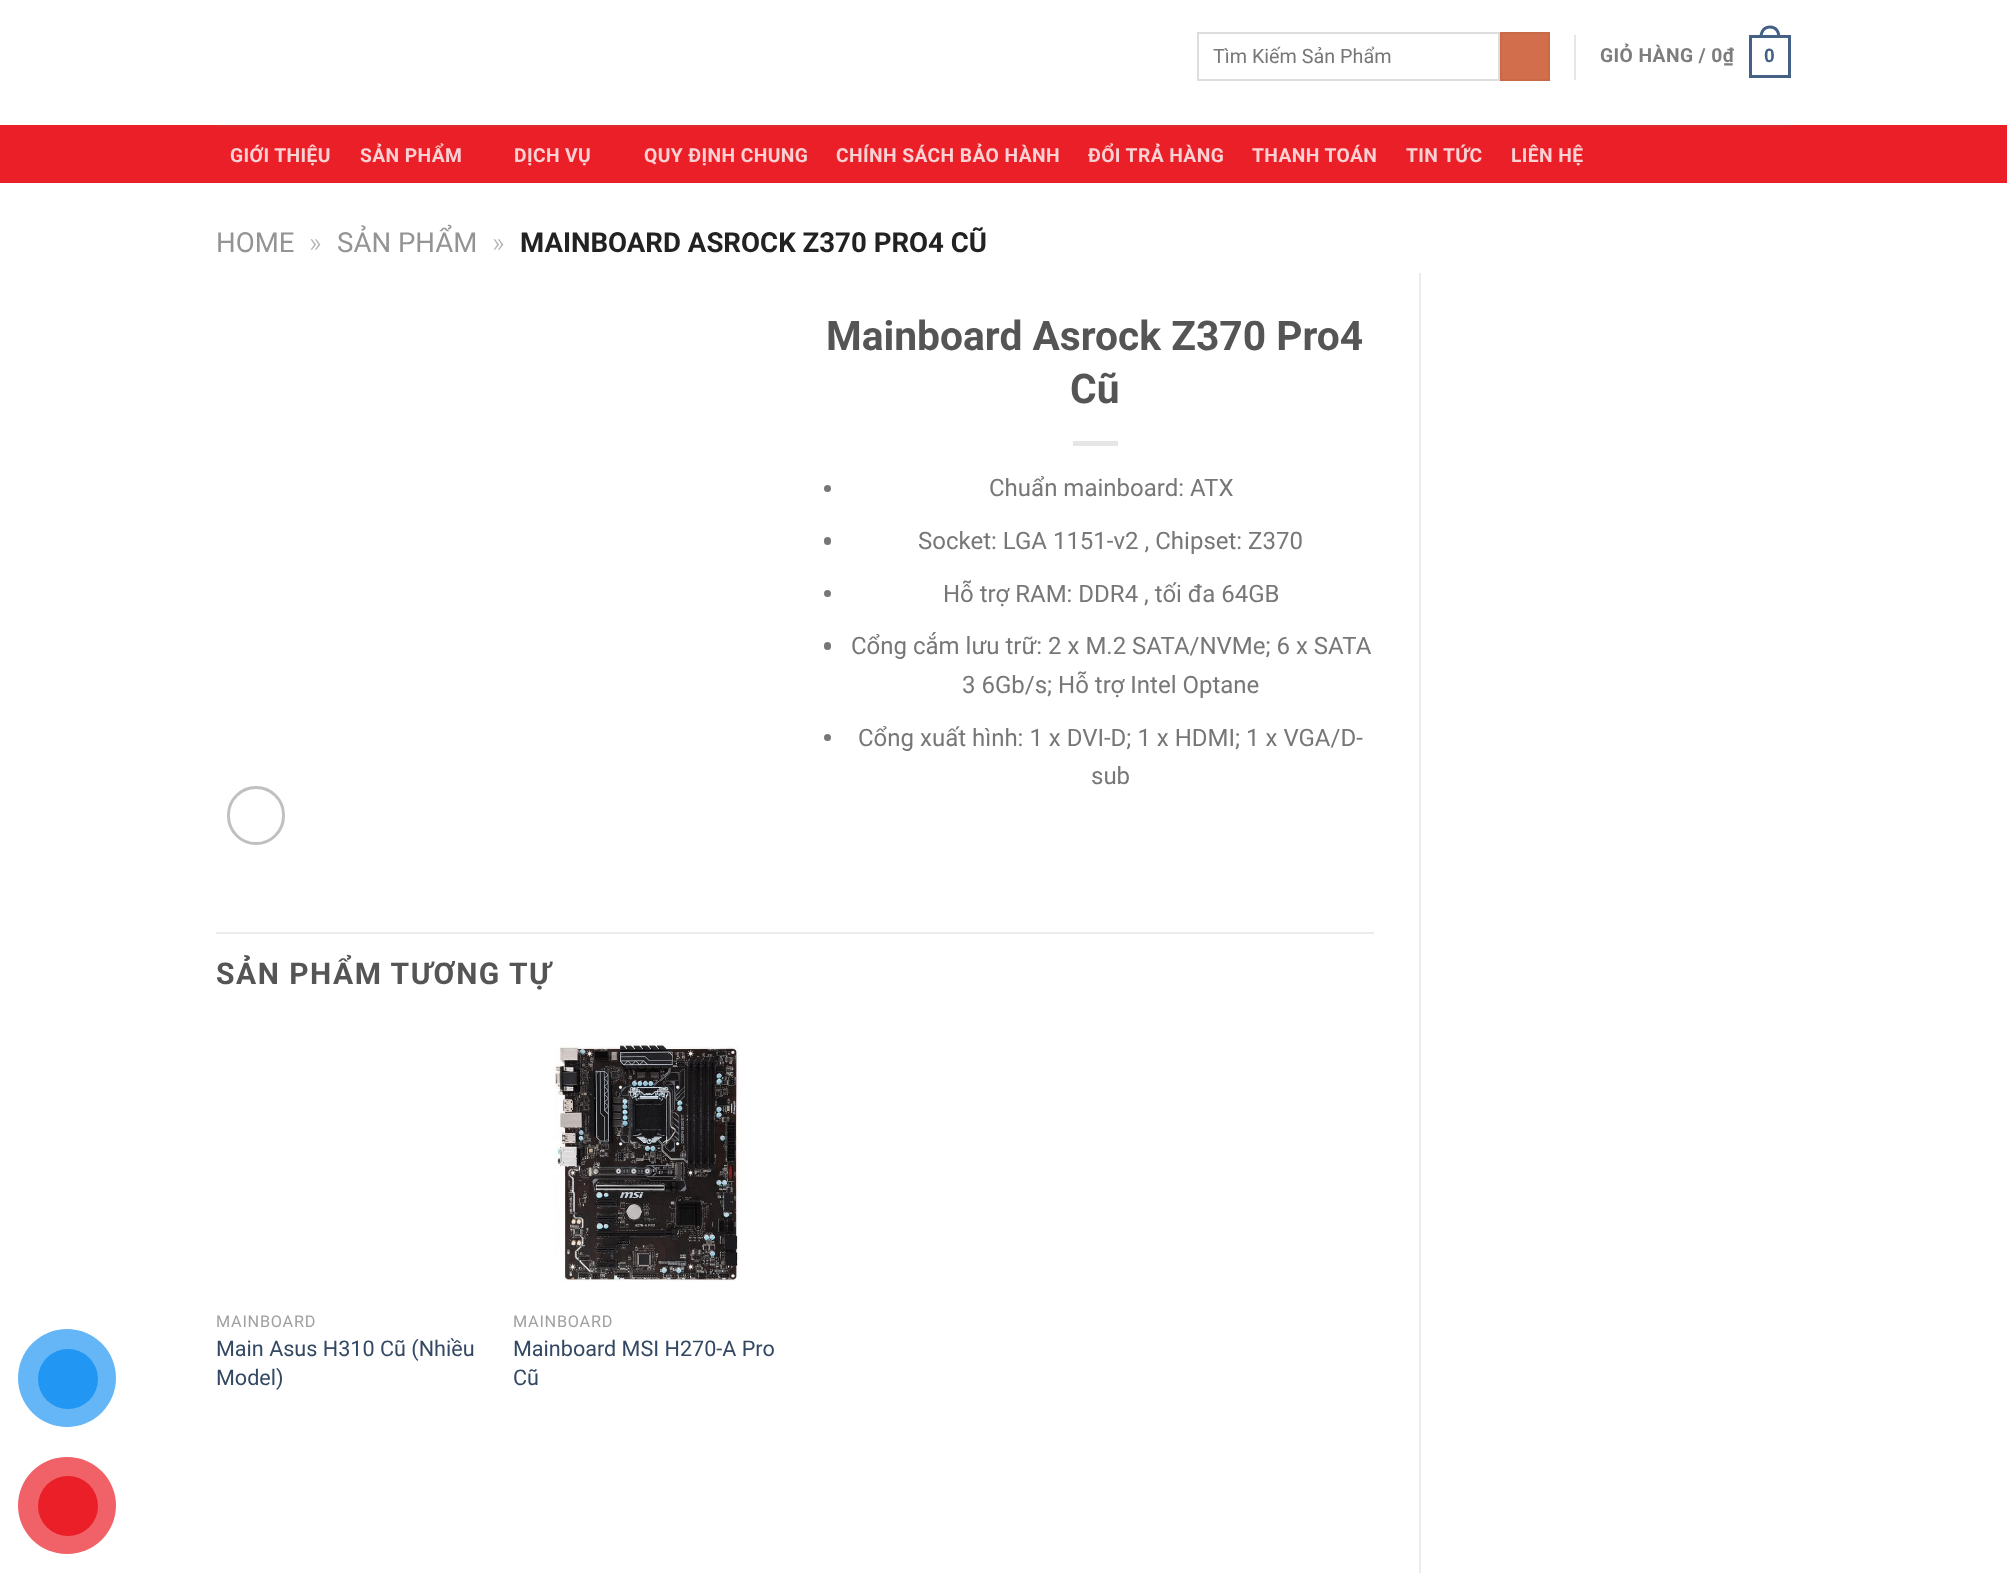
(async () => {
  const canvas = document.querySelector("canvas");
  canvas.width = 2007;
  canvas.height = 1573;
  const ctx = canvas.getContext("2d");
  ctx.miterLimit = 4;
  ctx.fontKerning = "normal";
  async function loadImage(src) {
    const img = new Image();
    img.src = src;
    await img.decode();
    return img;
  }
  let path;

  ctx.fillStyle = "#ffffff";
  ctx.fillRect(0, 0, 2007, 1573);
  ctx.strokeStyle = "#dddddd";
  ctx.lineWidth = 2;
  ctx.strokeRect(1198, 33, 301, 47);
  ctx.fillStyle = "#d26e4b";
  ctx.beginPath();
  ctx.rect(1501, 33, 48, 47);
  ctx.fill();
  ctx.strokeStyle = "#c86947";
  ctx.stroke();
  ctx.fillStyle = "#e6e6e6";
  ctx.fillRect(1574, 35, 2, 45);
  ctx.strokeStyle = "#446084";
  ctx.lineWidth = 3;
  ctx.strokeRect(1750.5, 36.5, 39, 40);
  ctx.fillStyle = "#446084";
  path = new Path2D("M1770 25.5C1777 25.5 1780.5 31 1780.5 37.5H1759.5C1759.5 31 1763 25.5 1770 25.5ZM1770 28.5C1775.5 28.5 1777.5 33 1777.5 37.5H1762.5C1762.5 33 1764.5 28.5 1770 28.5Z");
  ctx.fill(path, "evenodd");
  for (const [x, y, w, h, color] of [
    [0, 125, 2007, 58, "#eb1f27"],
    [216, 125, 1575, 2, "#df282f"],
    [1419, 273, 2, 1300, "#ececec"],
    [1073, 441, 45, 5, "#e6e6e6"],
  ]) {
    ctx.fillStyle = color;
    ctx.fillRect(x, y, w, h);
  }
  ctx.fillStyle = "#777777";
  ctx.beginPath();
  ctx.arc(827.5, 488.5, 3.5, 0, Math.PI * 2);
  ctx.fill();
  ctx.beginPath();
  ctx.roundRect(824, 537, 7, 8, 3.5);
  ctx.fill();
  ctx.beginPath();
  ctx.arc(827.5, 593.5, 3.5, 0, Math.PI * 2);
  ctx.fill();
  ctx.beginPath();
  ctx.roundRect(824, 642, 7, 8, 3.5);
  ctx.fill();
  ctx.beginPath();
  ctx.arc(827.5, 737.5, 3.5, 0, Math.PI * 2);
  ctx.fill();
  ctx.beginPath();
  ctx.roundRect(228.5, 787.5, 55, 56, 27.5);
  ctx.strokeStyle = "#c0c0c0";
  ctx.stroke();
  ctx.fillStyle = "#ececec";
  ctx.fillRect(216, 932, 1158, 2);
  ctx.drawImage(await loadImage("img/1.png"), 554, 1042, 185, 240);
  ctx.fillStyle = "#64b6f7";
  ctx.beginPath();
  ctx.arc(67, 1378, 49, 0, Math.PI * 2);
  ctx.fill();
  ctx.fillStyle = "#2196f3";
  ctx.beginPath();
  ctx.arc(68, 1379, 30, 0, Math.PI * 2);
  ctx.fill();
  ctx.fillStyle = "#f16268";
  ctx.beginPath();
  ctx.roundRect(18, 1457, 98, 97, 48.5);
  ctx.fill();
  ctx.fillStyle = "#eb1f27";
  ctx.beginPath();
  ctx.arc(68, 1506, 30, 0, Math.PI * 2);
  ctx.fill();
  ctx.font = "19.75px Roboto";
  ctx.fillStyle = "#777777";
  ctx.fillText("Tìm Kiếm Sản Phẩm", 1213, 63);
  ctx.letterSpacing = "0.4px";
  ctx.font = "bold 19.25px Roboto";
  ctx.fillStyle = "#7d7d7d";
  ctx.fillText("GIỎ HÀNG / 0₫", 1600, 62);
  ctx.font = "bold 19.25px Liberation Sans";
  ctx.fillStyle = "#446084";
  ctx.fillText("0", 1764, 62);
  ctx.font = "bold 19.25px Roboto";
  ctx.fillStyle = "#fbd2d4";
  for (const [text, x, y] of [
    ["GIỚI THIỆU", 230, 162],
    ["SẢN PHẨM", 360, 162],
    ["DỊCH VỤ", 514, 162],
    ["QUY ĐỊNH CHUNG", 644, 162],
    ["CHÍNH SÁCH BẢO HÀNH", 836, 162],
    ["ĐỔI TRẢ HÀNG", 1088, 162],
    ["THANH TOÁN", 1252, 162],
    ["TIN TỨC", 1406, 162],
    ["LIÊN HỆ", 1511, 162],
  ]) {
    ctx.fillText(text, x, y);
  }
  ctx.letterSpacing = "0px";
  ctx.font = "27.6px Roboto";
  ctx.fillStyle = "#949494";
  ctx.fillText("HOME", 216, 252);
  ctx.font = "300 27.6px Roboto";
  ctx.fillStyle = "#b2b2b2";
  ctx.fillText("»", 309, 252);
  ctx.font = "27.6px Roboto";
  ctx.fillStyle = "#949494";
  ctx.fillText("SẢN PHẨM", 337, 252);
  ctx.font = "300 27.6px Roboto";
  ctx.fillStyle = "#b2b2b2";
  ctx.fillText("»", 492, 252);
  ctx.font = "bold 27.6px Roboto";
  ctx.fillStyle = "#222222";
  ctx.fillText("MAINBOARD ASROCK Z370 PRO4 CŨ", 520, 252);
  ctx.font = "bold 40.75px Roboto";
  ctx.fillStyle = "#555555";
  ctx.fillText("Mainboard Asrock Z370 Pro4", 826, 350);
  ctx.fillText("Cũ", 1070, 403);
  ctx.font = "24px Roboto";
  ctx.fillStyle = "#777777";
  for (const [text, x, y] of [
    ["Chuẩn mainboard: ATX", 989, 496],
    ["Socket: LGA 1151-v2 , Chipset: Z370", 918, 549],
    ["Hỗ trợ RAM: DDR4 , tối đa 64GB", 943, 602],
    ["Cổng cắm lưu trữ: 2 x M.2 SATA/NVMe; 6 x SATA", 851, 654],
    ["3 6Gb/s; Hỗ trợ Intel Optane", 962, 693],
    ["Cổng xuất hình: 1 x DVI-D; 1 x HDMI; 1 x VGA/D-", 858, 746],
    ["sub", 1091, 784],
  ]) {
    ctx.fillText(text, x, y);
  }
  ctx.letterSpacing = "1.5px";
  ctx.font = "bold 30px Roboto";
  ctx.fillStyle = "#555555";
  ctx.fillText("SẢN PHẨM TƯƠNG TỰ", 216, 984);
  ctx.letterSpacing = "0.75px";
  ctx.font = "16.25px Roboto";
  ctx.fillStyle = "#a0a0a0";
  ctx.fillText("MAINBOARD", 216, 1327);
  ctx.letterSpacing = "0px";
  ctx.font = "21.6px Roboto";
  ctx.fillStyle = "#334862";
  ctx.fillText("Main Asus H310 Cũ (Nhiều", 216, 1356);
  ctx.fillText("Model)", 216, 1385);
  ctx.letterSpacing = "0.75px";
  ctx.font = "16.25px Roboto";
  ctx.fillStyle = "#a0a0a0";
  ctx.fillText("MAINBOARD", 513, 1327);
  ctx.letterSpacing = "0px";
  ctx.font = "21.6px Roboto";
  ctx.fillStyle = "#334862";
  ctx.fillText("Mainboard MSI H270-A Pro", 513, 1356);
  ctx.fillText("Cũ", 513, 1385);
})();
